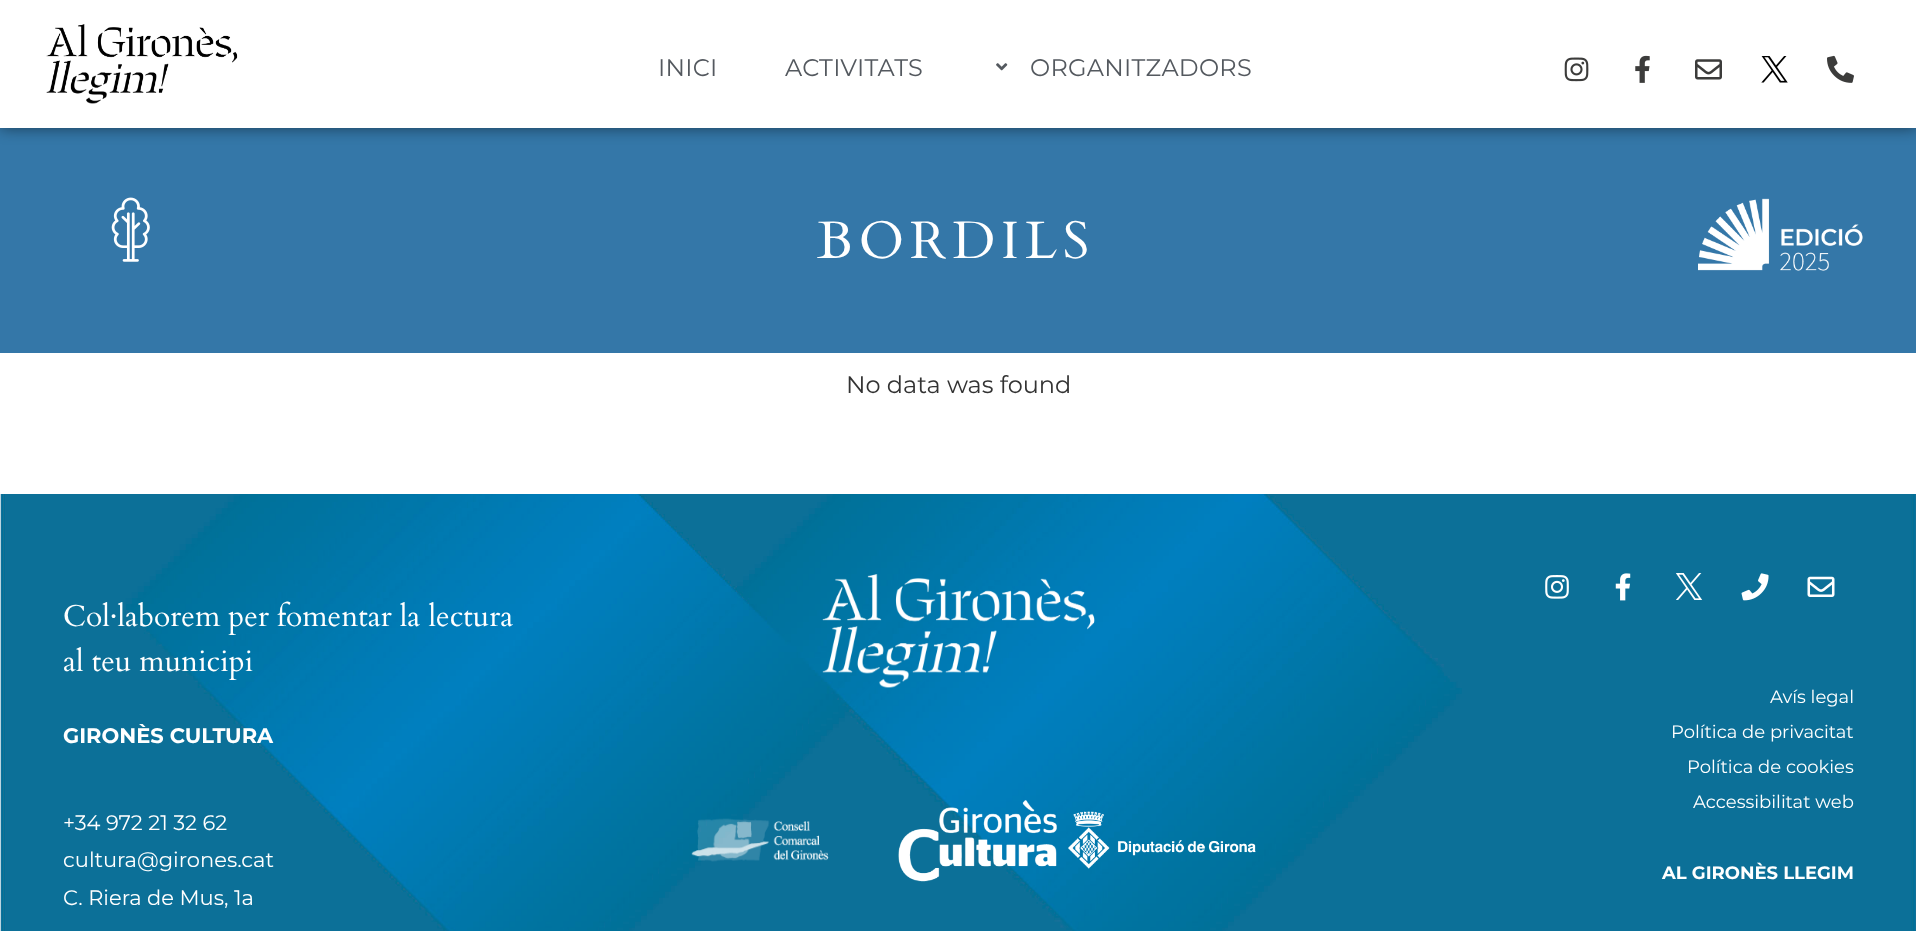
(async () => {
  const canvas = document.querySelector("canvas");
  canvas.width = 1916;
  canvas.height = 931;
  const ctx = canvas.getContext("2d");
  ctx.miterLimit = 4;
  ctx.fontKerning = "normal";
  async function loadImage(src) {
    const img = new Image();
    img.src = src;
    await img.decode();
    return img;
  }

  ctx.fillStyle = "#ffffff";
  ctx.fillRect(0, 0, 1916, 931);
  ctx.fillStyle = "#3477a8";
  ctx.fillRect(0, 127, 1916, 226);
  ctx.fillStyle = "rgba(0, 0, 0, 0.5)";
  ctx.filter = "blur(7.5px)";
  ctx.beginPath();
  ctx.roundRect(0, 0, 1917, 128, 1.5);
  ctx.fill();
  ctx.filter = "none";
  ctx.fillStyle = "#ffffff";
  ctx.fillRect(0, 0, 1916, 128);
  ctx.drawImage(await loadImage("img/1.png"), 46, 24, 192, 80);
  ctx.drawImage(await loadImage("img/2.png"), 996, 63, 12, 8);
  ctx.drawImage(await loadImage("img/3.png"), 1564, 57, 25, 25);
  ctx.drawImage(await loadImage("img/4.png"), 1635, 55, 15, 28);
  ctx.drawImage(await loadImage("img/5.png"), 1695, 59, 27, 21);
  ctx.drawImage(await loadImage("img/6.png"), 1761, 56, 27, 27);
  ctx.drawImage(await loadImage("img/7.png"), 1827, 55, 27, 28);
  ctx.drawImage(await loadImage("img/8.png"), 111, 197, 39, 65);
  ctx.drawImage(await loadImage("img/9.png"), 1698, 198, 165, 73);
  ctx.drawImage(await loadImage("img/10.png"), 0, 494, 1916, 437);
  ctx.drawImage(await loadImage("img/11.png"), 822, 574, 273, 114);
  ctx.drawImage(await loadImage("img/12.png"), 691, 818, 138, 44);
  ctx.drawImage(await loadImage("img/13.png"), 898, 800, 159, 82);
  ctx.drawImage(await loadImage("img/14.png"), 1068, 811, 188, 58);
  ctx.drawImage(await loadImage("img/15.png"), 1545, 575, 24, 24);
  ctx.drawImage(await loadImage("img/16.png"), 1615, 573, 16, 28);
  ctx.drawImage(await loadImage("img/17.png"), 1676, 573, 27, 27);
  ctx.drawImage(await loadImage("img/18.png"), 1741, 573, 28, 28);
  ctx.drawImage(await loadImage("img/19.png"), 1807, 576, 28, 21);
  ctx.letterSpacing = "0.25px";
  ctx.font = "24px Montserrat";
  ctx.fillStyle = "#54595f";
  for (const [text, x, y] of [
    ["INICI", 658, 76],
    ["ACTIVITATS", 785, 76],
    ["ORGANITZADORS", 1030, 76],
  ]) {
    ctx.fillText(text, x, y);
  }
  ctx.letterSpacing = "6px";
  ctx.font = "52.5px Cardo";
  ctx.fillStyle = "#ffffff";
  ctx.fillText("BORDILS", 817, 258);
  ctx.letterSpacing = "0px";
  ctx.font = "24px Montserrat";
  ctx.fillStyle = "#333333";
  ctx.fillText("No data was found", 846, 393);
  ctx.font = "30px Cardo";
  ctx.fillStyle = "#ffffff";
  ctx.fillText("Col·laborem per fomentar la lectura", 63, 626);
  ctx.fillText("al teu municipi", 63, 671);
  ctx.font = "bold 21px Montserrat";
  ctx.fillText("GIRONÈS CULTURA", 63, 743);
  ctx.font = "21px Montserrat";
  for (const [text, x, y] of [
    ["+34 972 21 32 62", 63, 830],
    ["cultura@girones.cat", 63, 867],
    ["C. Riera de Mus, 1a", 63, 905],
  ]) {
    ctx.fillText(text, x, y);
  }
  ctx.font = "18px Montserrat";
  for (const [text, x, y] of [
    ["Avís legal", 1770, 703],
    ["Política de privacitat", 1671, 738],
    ["Política de cookies", 1687, 773],
    ["Accessibilitat web", 1693, 808],
  ]) {
    ctx.fillText(text, x, y);
  }
  ctx.font = "bold 18px Montserrat";
  ctx.fillText("AL GIRONÈS LLEGIM", 1662, 879);
})();
